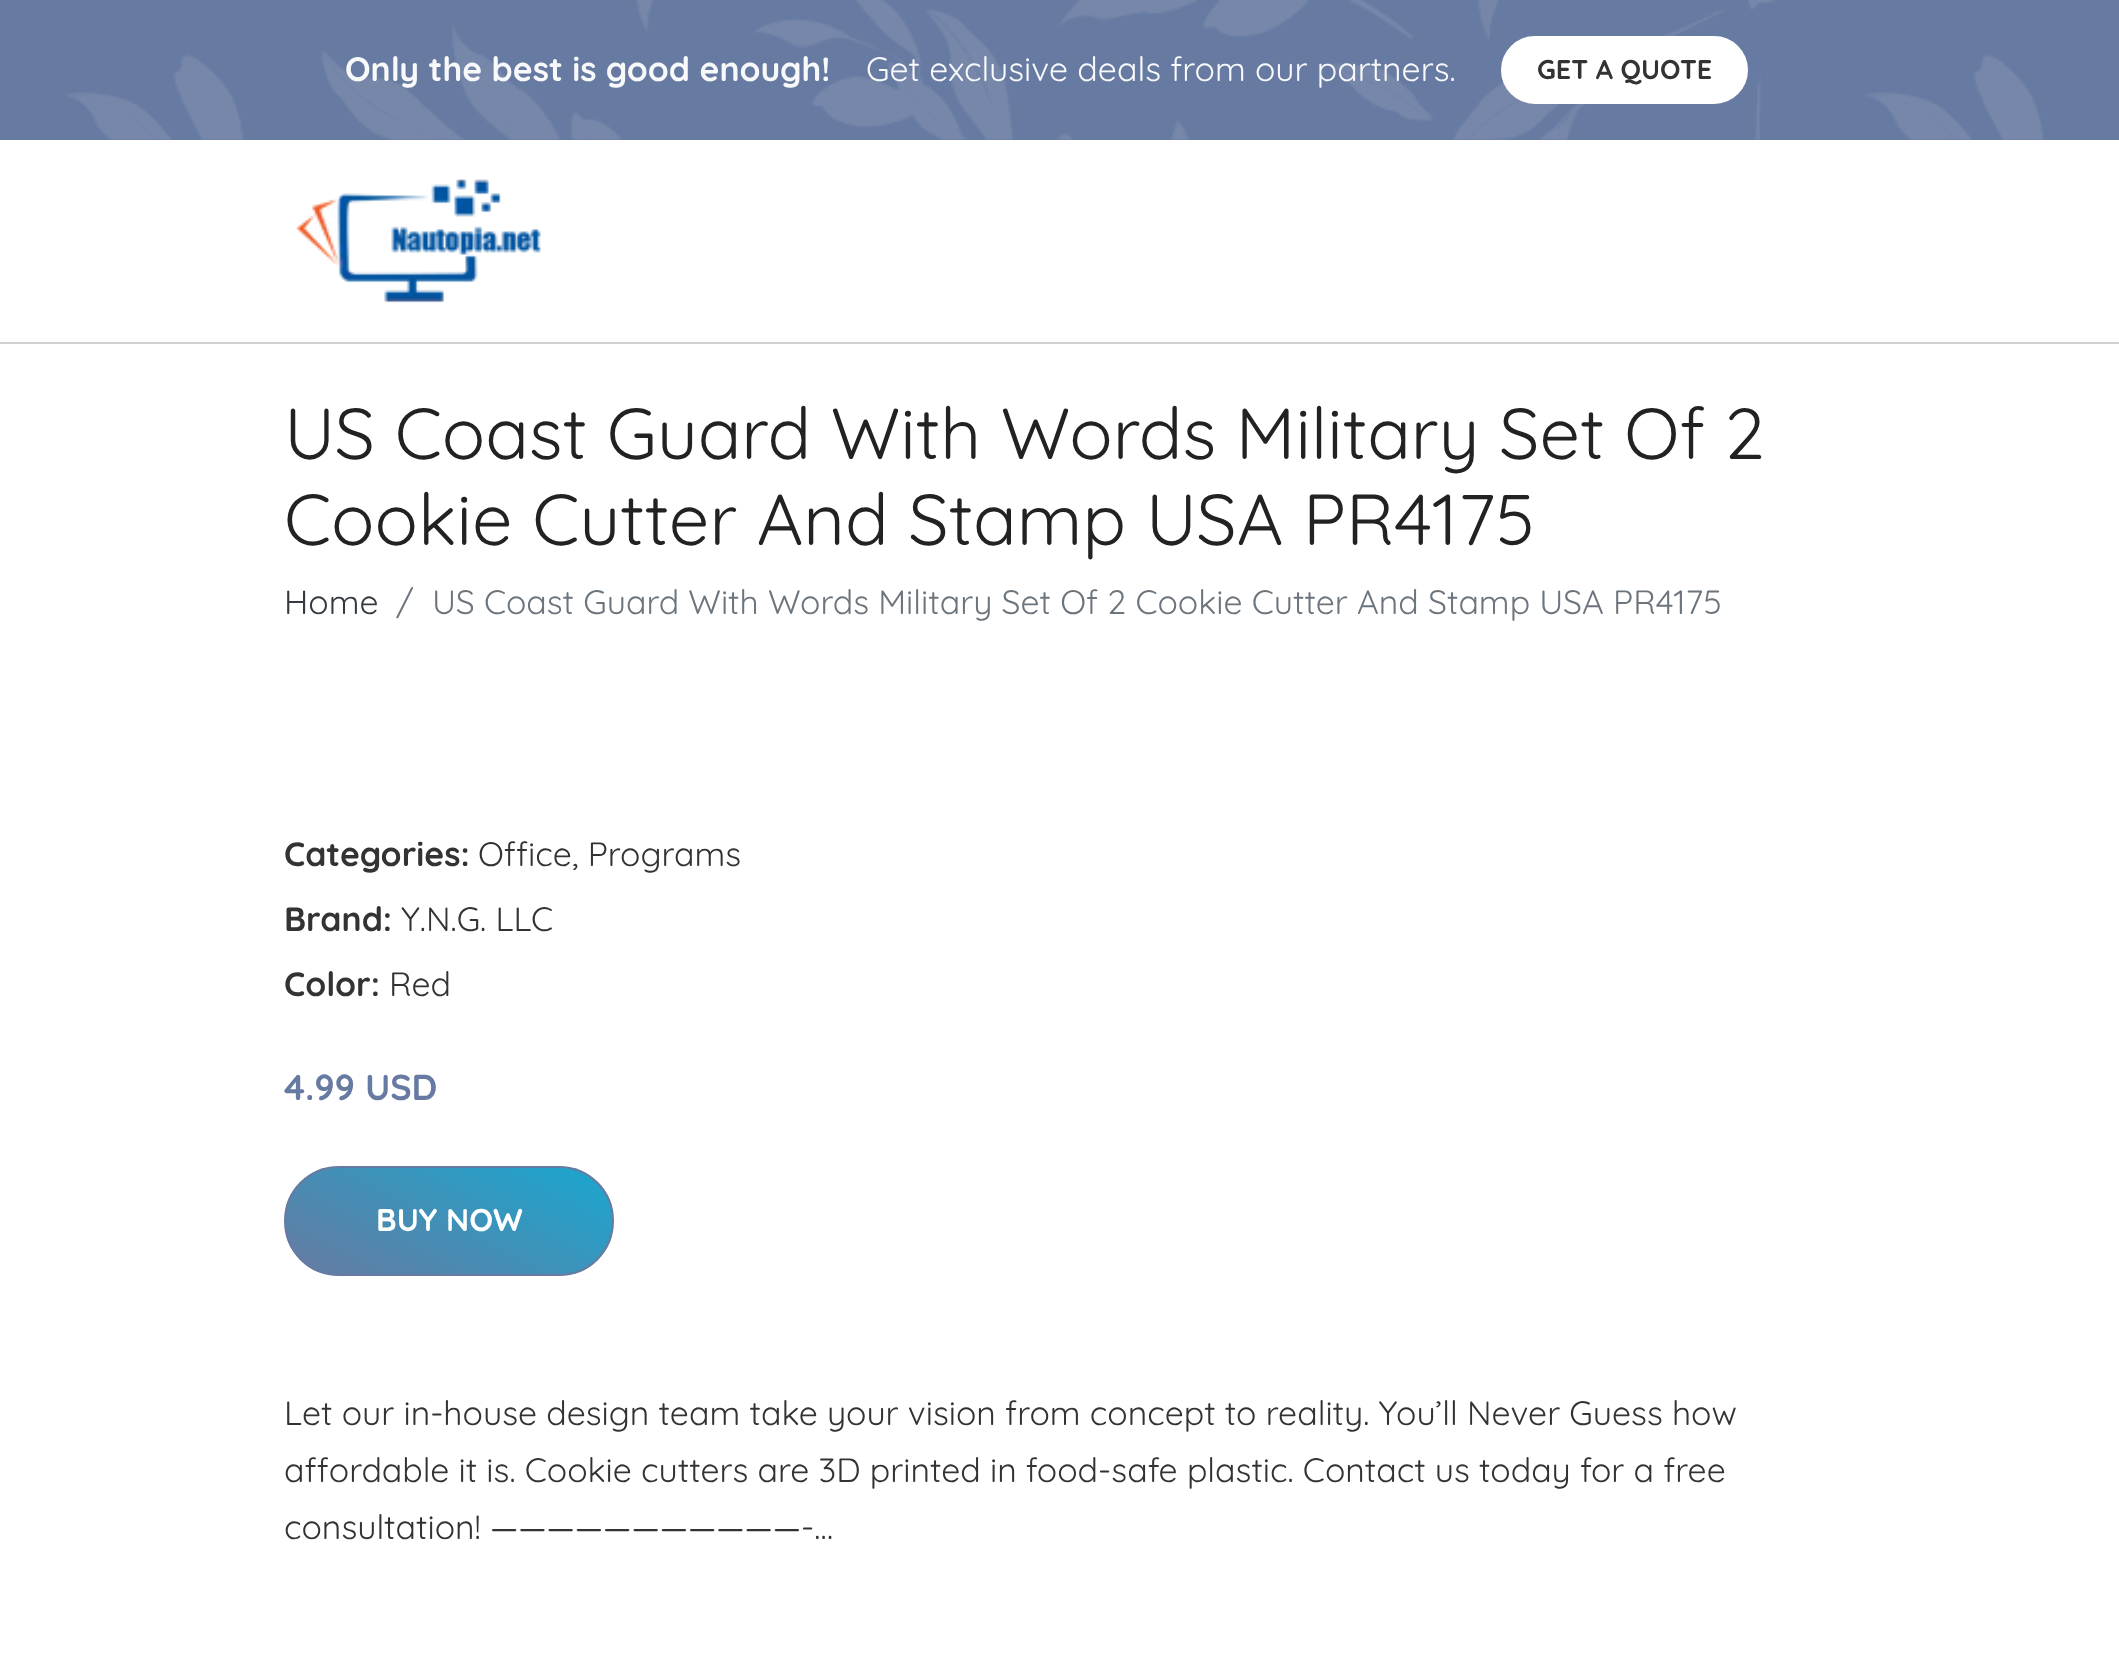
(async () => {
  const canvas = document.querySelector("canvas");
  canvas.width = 2119;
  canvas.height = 1661;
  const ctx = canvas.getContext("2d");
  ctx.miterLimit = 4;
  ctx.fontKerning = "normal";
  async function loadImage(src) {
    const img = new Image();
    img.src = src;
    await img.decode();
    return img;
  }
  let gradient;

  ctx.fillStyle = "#ffffff";
  ctx.fillRect(0, 0, 2119, 1661);
  ctx.fillStyle = "#d1d1d1";
  ctx.fillRect(0, 342, 2119, 2);
  ctx.fillStyle = "#677aa1";
  ctx.fillRect(0, 0, 2119, 140);
  ctx.drawImage(await loadImage("img/1.png"), 67, 0, 1977, 140);
  ctx.fillStyle = "#ffffff";
  ctx.beginPath();
  ctx.roundRect(1502, 37, 245, 66, 33);
  ctx.fill();
  ctx.strokeStyle = "#ffffff";
  ctx.lineWidth = 2;
  ctx.stroke();
  ctx.drawImage(await loadImage("img/2.png"), 296, 179, 245, 124);
  ctx.save();
  ctx.beginPath();
  ctx.roundRect(284, 1166, 330, 110, 55);
  ctx.clip();
  gradient = ctx.createLinearGradient(394, 1329, 504, 1113);
  gradient.addColorStop(0, "#677aa1");
  gradient.addColorStop(1, "#19a7cf");
  ctx.fillStyle = gradient;
  ctx.fillRect(286, 1168, 326, 106);
  ctx.restore();
  ctx.beginPath();
  ctx.roundRect(285, 1167, 328, 108, 54);
  ctx.strokeStyle = "#677aa1";
  ctx.stroke();
  ctx.font = "bold 33.75px Quicksand";
  ctx.fillStyle = "#f8f9fa";
  ctx.fillText("Only the best is good enough!", 345, 81);
  ctx.font = "33.75px Quicksand";
  ctx.fillText("Get exclusive deals from our partners.", 866, 81);
  ctx.font = "bold 27px Quicksand";
  ctx.fillStyle = "#333333";
  ctx.fillText("GET A QUOTE", 1537, 79);
  ctx.font = "72px Quicksand";
  ctx.fillStyle = "#222222";
  ctx.fillText("US Coast Guard With Words Military Set Of 2", 284, 459);
  ctx.fillText("Cookie Cutter And Stamp USA PR4175", 284, 545);
  ctx.font = "33.75px Quicksand";
  ctx.fillStyle = "#343a40";
  ctx.fillText("Home", 284, 614);
  ctx.fillStyle = "#6c757d";
  ctx.fillText("/", 396, 614);
  ctx.fillText("US Coast Guard With Words Military Set Of 2 Cookie Cutter And Stamp USA PR4175", 432, 614);
  ctx.font = "bold 33.75px Quicksand";
  ctx.fillStyle = "#333333";
  ctx.fillText("Categories:", 284, 866);
  ctx.font = "33.75px Quicksand";
  ctx.fillText("Office, Programs", 478, 866);
  ctx.font = "bold 33.75px Quicksand";
  ctx.fillText("Brand:", 284, 931);
  ctx.font = "33.75px Quicksand";
  ctx.fillText("Y.N.G. LLC", 401, 931);
  ctx.font = "bold 33.75px Quicksand";
  ctx.fillText("Color:", 284, 996);
  ctx.font = "33.75px Quicksand";
  ctx.fillText("Red", 389, 996);
  ctx.font = "bold 36px Quicksand";
  ctx.fillStyle = "#677aa1";
  ctx.fillText("4.99 USD", 284, 1100);
  ctx.font = "bold 31.5px Quicksand";
  ctx.fillStyle = "#ffffff";
  ctx.fillText("BUY NOW", 376, 1231);
  ctx.font = "33.75px Quicksand";
  ctx.fillStyle = "#333333";
  for (const [text, x, y] of [
    ["Let our in-house design team take your vision from concept to reality. You’ll Never Guess how", 284, 1425],
    ["affordable it is. Cookie cutters are 3D printed in food-safe plastic. Contact us today for a free", 284, 1482],
    ["consultation! ———————————-…", 284, 1539],
  ]) {
    ctx.fillText(text, x, y);
  }
})();
